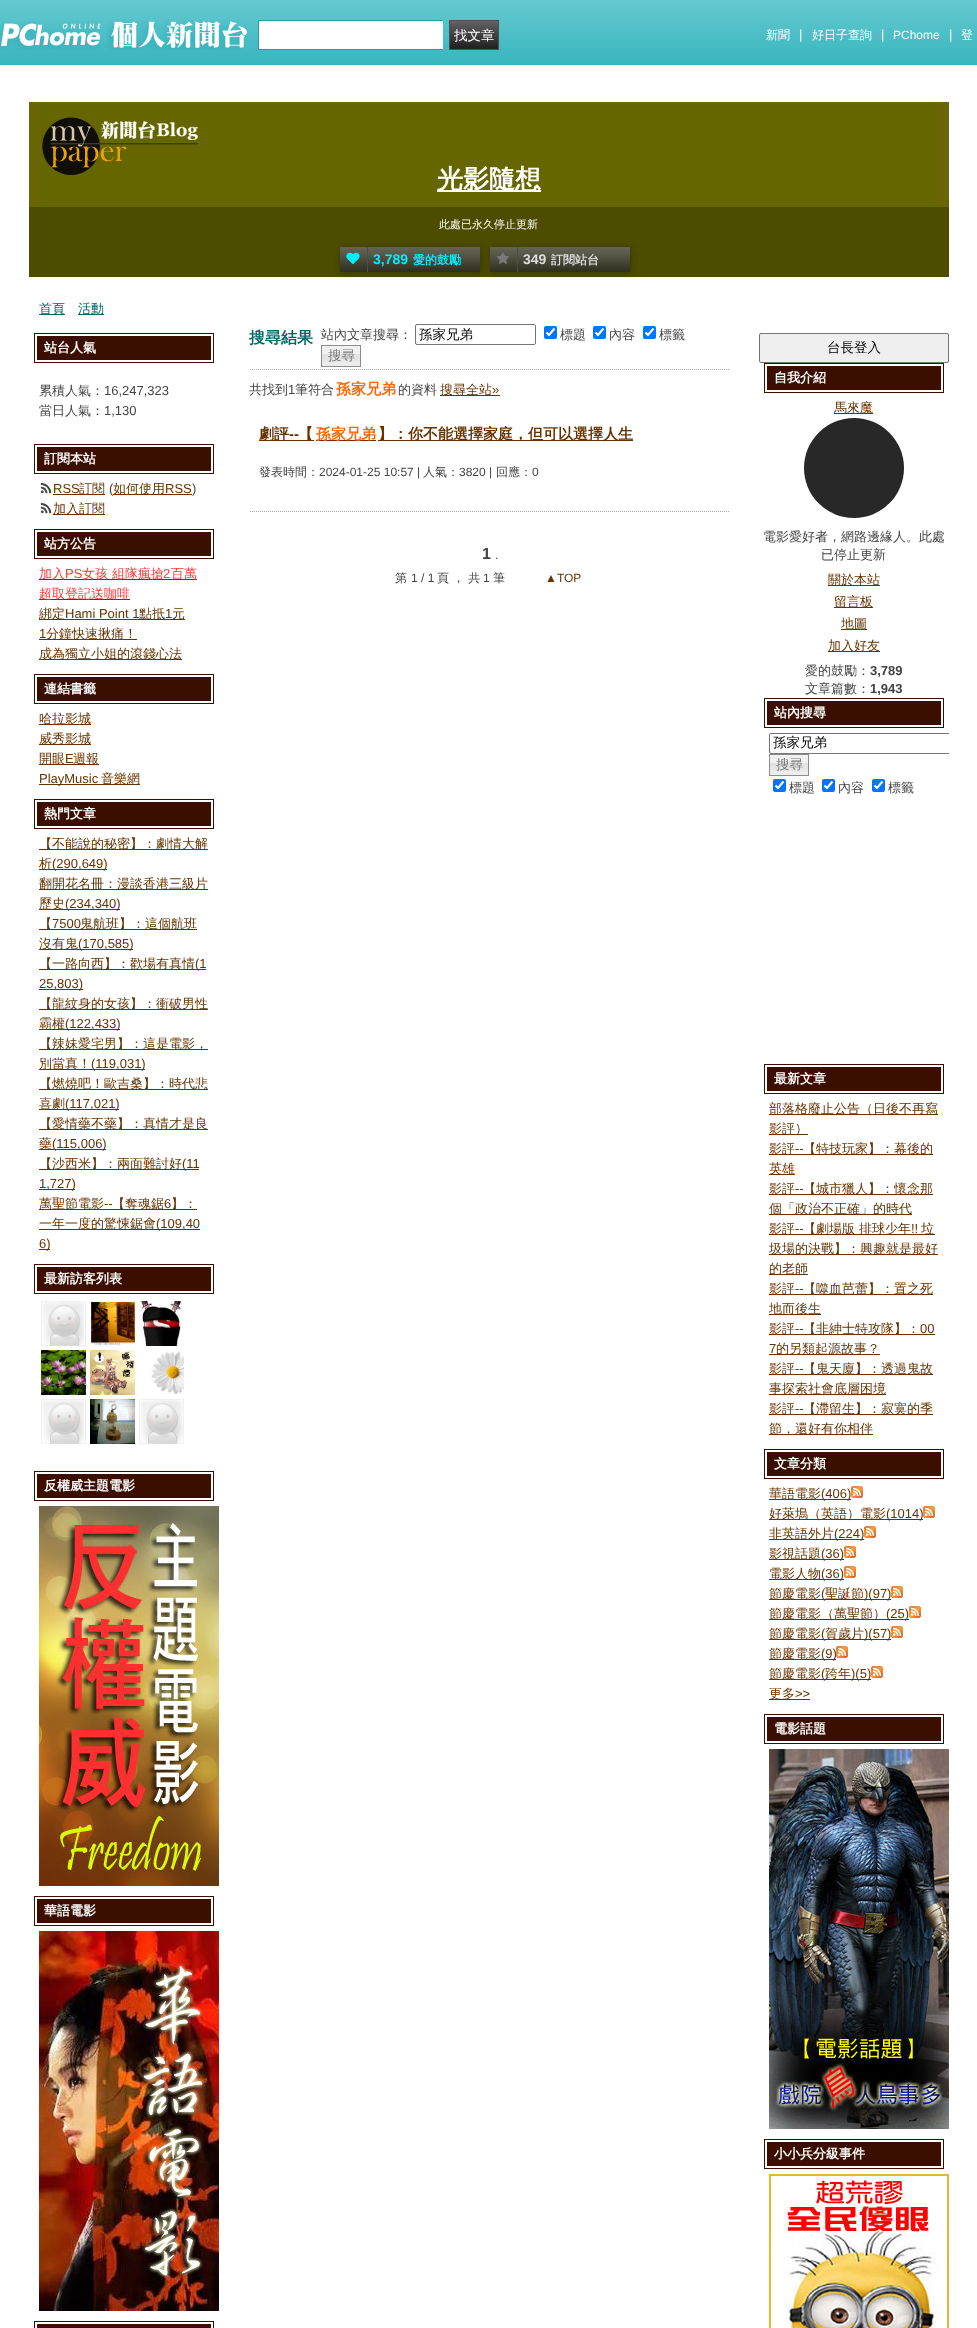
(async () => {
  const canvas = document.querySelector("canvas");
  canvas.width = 977;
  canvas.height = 2328;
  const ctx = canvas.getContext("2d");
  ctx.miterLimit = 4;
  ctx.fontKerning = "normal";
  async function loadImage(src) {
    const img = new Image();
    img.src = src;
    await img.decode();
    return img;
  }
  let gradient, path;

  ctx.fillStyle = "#ffffff";
  ctx.fillRect(0, 0, 977, 2328);
  gradient = ctx.createLinearGradient(489, 0, 489, 65);
  gradient.addColorStop(0, "#66c9d0");
  gradient.addColorStop(1, "#37b5be");
  ctx.fillStyle = gradient;
  ctx.fillRect(0, 0, 977, 64);
  ctx.fillStyle = "#33b4bd";
  ctx.fillRect(0, 64, 977, 1);
  ctx.drawImage(await loadImage("img/1.png"), 0, 21, 101, 29);
  ctx.drawImage(await loadImage("img/2.png"), 107, 20, 140, 30);
  for (const [x, y, w, h, color] of [
    [259, 21, 184, 28, "#ffffff"],
    [258, 20, 185, 1, "#269ca4"],
    [258, 49, 185, 1, "#269ca4"],
    [258, 20, 1, 30, "#269ca4"],
  ]) {
    ctx.fillStyle = color;
    ctx.fillRect(x, y, w, h);
  }
  gradient = ctx.createLinearGradient(474, 21, 474, 49);
  gradient.addColorStop(0, "#626262");
  gradient.addColorStop(1, "#1f1f1f");
  ctx.fillStyle = gradient;
  ctx.fillRect(450, 21, 48, 28);
  ctx.strokeStyle = "#505050";
  ctx.strokeRect(449.5, 20.5, 49, 29);
  ctx.fillStyle = "#4d4d00";
  ctx.fillRect(29, 207, 920, 70);
  ctx.drawImage(await loadImage("img/3.png"), 29, 102, 920, 105);
  ctx.fillStyle = "#ffffff";
  ctx.fillRect(437, 190, 104, 2);
  ctx.save();
  path = new Path2D("M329 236H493V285H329ZM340 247H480V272H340Z");
  ctx.clip(path, "evenodd");
  ctx.fillStyle = "rgba(0, 0, 0, 0.3)";
  ctx.filter = "blur(3.5px)";
  ctx.beginPath();
  ctx.rect(341, 248, 140, 25);
  ctx.fill();
  ctx.filter = "none";
  ctx.restore();
  ctx.drawImage(await loadImage("img/4.png"), 340, 247, 140, 25);
  ctx.fillStyle = "#514b4a";
  ctx.fillRect(367, 247, 1, 25);
  ctx.save();
  path = new Path2D("M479 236H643V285H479ZM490 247H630V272H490Z");
  ctx.clip(path, "evenodd");
  ctx.fillStyle = "rgba(0, 0, 0, 0.3)";
  ctx.filter = "blur(3.5px)";
  ctx.beginPath();
  ctx.rect(491, 248, 140, 25);
  ctx.fill();
  ctx.filter = "none";
  ctx.restore();
  ctx.drawImage(await loadImage("img/4.png"), 490, 247, 140, 25);
  for (const [x, y, w, h, color] of [
    [517, 247, 1, 25, "#514b4a"],
    [39, 314, 26, 1, "#006666"],
    [78, 314, 26, 1, "#006666"],
  ]) {
    ctx.fillStyle = color;
    ctx.fillRect(x, y, w, h);
  }
  ctx.drawImage(await loadImage("img/5.png"), 250, 369, 479, 1);
  ctx.beginPath();
  ctx.roundRect(415.5, 324.5, 120, 20, 1.5);
  ctx.strokeStyle = "#767676";
  ctx.stroke();
  ctx.fillStyle = "#0075ff";
  ctx.beginPath();
  ctx.roundRect(544, 326, 13, 13, 2);
  ctx.fill();
  path = new Path2D("M546.5 332.5L549 335L554.5 328.5");
  ctx.strokeStyle = "#ffffff";
  ctx.lineWidth = 2.1;
  ctx.stroke(path);
  ctx.beginPath();
  ctx.roundRect(593, 326, 13, 13, 2);
  ctx.fill();
  path = new Path2D("M595.5 332.5L598 335L603.5 328.5");
  ctx.stroke(path);
  ctx.beginPath();
  ctx.roundRect(643, 326, 13, 13, 2);
  ctx.fill();
  path = new Path2D("M645.5 332.5L648 335L653.5 328.5");
  ctx.stroke(path);
  ctx.drawImage(await loadImage("img/6.png"), 322, 346, 38, 20);
  ctx.strokeStyle = "#8d8d8d";
  ctx.lineWidth = 1;
  ctx.strokeRect(321.5, 345.5, 39, 21);
  for (const [x, y, w, h, color] of [
    [440, 395, 60, 1, "#663300"],
    [259, 440, 55, 1, "#663300"],
    [316, 440, 60, 1, "#663300"],
    [378, 440, 255, 1, "#663300"],
  ]) {
    ctx.fillStyle = color;
    ctx.fillRect(x, y, w, h);
  }
  ctx.drawImage(await loadImage("img/5.png"), 250, 511, 479, 1);
  ctx.drawImage(await loadImage("img/7.png"), 34, 333, 180, 30);
  ctx.drawImage(await loadImage("img/7.png"), 34, 444, 180, 30);
  ctx.fillRect(53, 494, 52, 1);
  ctx.fillRect(53, 514, 52, 1);
  ctx.drawImage(await loadImage("img/7.png"), 34, 529, 180, 30);
  for (const [x, y, w, h, color] of [
    [39, 579, 158, 1, "#663300"],
    [39, 599, 91, 1, "#663300"],
    [39, 619, 146, 1, "#663300"],
    [39, 639, 98, 1, "#663300"],
    [39, 659, 143, 1, "#663300"],
  ]) {
    ctx.fillStyle = color;
    ctx.fillRect(x, y, w, h);
  }
  ctx.drawImage(await loadImage("img/7.png"), 34, 674, 180, 30);
  for (const [x, y, w, h, color] of [
    [39, 724, 52, 1, "#663300"],
    [39, 744, 52, 1, "#663300"],
    [39, 764, 60, 1, "#663300"],
    [39, 784, 101, 1, "#663300"],
  ]) {
    ctx.fillStyle = color;
    ctx.fillRect(x, y, w, h);
  }
  ctx.drawImage(await loadImage("img/7.png"), 34, 799, 180, 30);
  for (const [x, y, w, h, color] of [
    [39, 849, 169, 1, "#663300"],
    [39, 869, 68, 1, "#663300"],
    [39, 889, 169, 1, "#663300"],
    [39, 909, 81, 1, "#663300"],
    [39, 929, 158, 1, "#663300"],
    [39, 949, 94, 1, "#663300"],
    [39, 969, 167, 1, "#663300"],
    [39, 989, 44, 1, "#663300"],
    [39, 1009, 169, 1, "#663300"],
    [39, 1029, 81, 1, "#663300"],
    [39, 1049, 169, 1, "#663300"],
    [39, 1069, 106, 1, "#663300"],
    [39, 1089, 169, 1, "#663300"],
    [39, 1109, 80, 1, "#663300"],
    [39, 1129, 169, 1, "#663300"],
    [39, 1149, 67, 1, "#663300"],
    [39, 1169, 160, 1, "#663300"],
    [39, 1189, 36, 1, "#663300"],
    [39, 1209, 158, 1, "#663300"],
    [39, 1229, 161, 1, "#663300"],
    [39, 1249, 11, 1, "#663300"],
  ]) {
    ctx.fillStyle = color;
    ctx.fillRect(x, y, w, h);
  }
  ctx.drawImage(await loadImage("img/7.png"), 34, 1264, 180, 30);
  ctx.drawImage(await loadImage("img/8.png"), 41, 1301, 45, 45);
  ctx.drawImage(await loadImage("img/9.png"), 90, 1301, 45, 45);
  ctx.drawImage(await loadImage("img/10.png"), 139, 1301, 45, 45);
  ctx.drawImage(await loadImage("img/11.png"), 41, 1350, 45, 45);
  ctx.drawImage(await loadImage("img/12.png"), 90, 1350, 45, 45);
  ctx.drawImage(await loadImage("img/13.png"), 151, 1351, 33, 43);
  ctx.drawImage(await loadImage("img/8.png"), 41, 1399, 45, 45);
  ctx.drawImage(await loadImage("img/14.png"), 90, 1399, 45, 45);
  ctx.drawImage(await loadImage("img/15.png"), 139, 1399, 45, 45);
  ctx.drawImage(await loadImage("img/7.png"), 34, 1471, 180, 30);
  ctx.drawImage(await loadImage("img/16.png"), 39, 1506, 180, 380);
  ctx.drawImage(await loadImage("img/7.png"), 34, 1896, 180, 30);
  ctx.drawImage(await loadImage("img/17.png"), 39, 1931, 180, 380);
  ctx.drawImage(await loadImage("img/18.png"), 34, 2321, 180, 7);
  ctx.fillStyle = "#efefef";
  ctx.beginPath();
  ctx.roundRect(759.5, 333.5, 189, 29, 1.5);
  ctx.fill();
  ctx.strokeStyle = "#767676";
  ctx.stroke();
  ctx.drawImage(await loadImage("img/7.png"), 764, 363, 180, 30);
  ctx.fillStyle = "#663300";
  ctx.fillRect(834, 413, 39, 1);
  ctx.drawImage(await loadImage("img/19.png"), 804, 418, 100, 100);
  for (const [x, y, w, h, color] of [
    [828, 585, 52, 1, "#663300"],
    [834, 607, 39, 1, "#663300"],
    [841, 629, 26, 1, "#663300"],
    [828, 651, 52, 1, "#663300"],
  ]) {
    ctx.fillStyle = color;
    ctx.fillRect(x, y, w, h);
  }
  ctx.drawImage(await loadImage("img/7.png"), 764, 698, 180, 30);
  ctx.save();
  ctx.beginPath();
  ctx.rect(759, 728, 190, 80);
  ctx.clip();
  ctx.beginPath();
  ctx.roundRect(769.5, 733.5, 184, 20, 1.5);
  ctx.stroke();
  ctx.restore();
  ctx.drawImage(await loadImage("img/6.png"), 770, 755, 38, 20);
  ctx.strokeStyle = "#8d8d8d";
  ctx.strokeRect(769.5, 754.5, 39, 21);
  ctx.fillStyle = "#0075ff";
  ctx.beginPath();
  ctx.roundRect(773, 779, 13, 13, 2);
  ctx.fill();
  path = new Path2D("M775.5 785.5L778 788L783.5 781.5");
  ctx.strokeStyle = "#ffffff";
  ctx.lineWidth = 2.1;
  ctx.stroke(path);
  ctx.beginPath();
  ctx.roundRect(822, 779, 13, 13, 2);
  ctx.fill();
  path = new Path2D("M824.5 785.5L827 788L832.5 781.5");
  ctx.stroke(path);
  ctx.beginPath();
  ctx.roundRect(872, 779, 13, 13, 2);
  ctx.fill();
  path = new Path2D("M874.5 785.5L877 788L882.5 781.5");
  ctx.stroke(path);
  ctx.drawImage(await loadImage("img/7.png"), 764, 1064, 180, 30);
  for (const [x, y, w, h, color] of [
    [769, 1114, 169, 1, "#663300"],
    [769, 1134, 39, 1, "#663300"],
    [769, 1154, 164, 1, "#663300"],
    [769, 1174, 26, 1, "#663300"],
    [769, 1194, 164, 1, "#663300"],
    [769, 1214, 143, 1, "#663300"],
    [769, 1234, 166, 1, "#663300"],
    [769, 1254, 169, 1, "#663300"],
    [769, 1274, 39, 1, "#663300"],
    [769, 1294, 164, 1, "#663300"],
    [769, 1314, 52, 1, "#663300"],
    [769, 1334, 166, 1, "#663300"],
    [769, 1354, 111, 1, "#663300"],
    [769, 1374, 164, 1, "#663300"],
    [769, 1394, 117, 1, "#663300"],
    [769, 1414, 164, 1, "#663300"],
    [769, 1434, 104, 1, "#663300"],
  ]) {
    ctx.fillStyle = color;
    ctx.fillRect(x, y, w, h);
  }
  ctx.drawImage(await loadImage("img/7.png"), 764, 1449, 180, 30);
  ctx.fillRect(769, 1499, 82, 1);
  ctx.drawImage(await loadImage("img/20.png"), 851, 1486, 12, 12);
  ctx.fillRect(769, 1519, 154, 1);
  ctx.drawImage(await loadImage("img/20.png"), 923, 1506, 12, 12);
  ctx.fillRect(769, 1539, 95, 1);
  ctx.drawImage(await loadImage("img/20.png"), 864, 1526, 12, 12);
  ctx.fillRect(769, 1559, 75, 1);
  ctx.drawImage(await loadImage("img/20.png"), 844, 1546, 12, 12);
  ctx.fillRect(769, 1579, 75, 1);
  ctx.drawImage(await loadImage("img/20.png"), 844, 1566, 12, 12);
  ctx.fillRect(769, 1599, 122, 1);
  ctx.drawImage(await loadImage("img/20.png"), 891, 1586, 12, 12);
  ctx.fillRect(769, 1619, 140, 1);
  ctx.drawImage(await loadImage("img/20.png"), 909, 1606, 12, 12);
  ctx.fillRect(769, 1639, 122, 1);
  ctx.drawImage(await loadImage("img/20.png"), 891, 1626, 12, 12);
  ctx.fillRect(769, 1659, 67, 1);
  ctx.drawImage(await loadImage("img/20.png"), 836, 1646, 12, 12);
  ctx.fillRect(769, 1679, 102, 1);
  ctx.drawImage(await loadImage("img/20.png"), 871, 1666, 12, 12);
  ctx.fillRect(769, 1699, 41, 1);
  ctx.drawImage(await loadImage("img/7.png"), 764, 1714, 180, 30);
  ctx.drawImage(await loadImage("img/21.png"), 769, 1749, 180, 380);
  ctx.drawImage(await loadImage("img/7.png"), 764, 2139, 180, 30);
  ctx.drawImage(await loadImage("img/22.png"), 769, 2174, 180, 154);
  ctx.font = "500 13.5px WenQuanYi Zen Hei";
  ctx.fillStyle = "#ffffff";
  ctx.fillText("找文章", 454, 40);
  ctx.font = "500 12px WenQuanYi Zen Hei";
  ctx.fillText("新聞", 766, 39);
  ctx.font = "13px Liberation Sans";
  ctx.fillText("|", 799, 39);
  ctx.font = "500 12px WenQuanYi Zen Hei";
  ctx.fillText("好日子查詢", 812, 39);
  ctx.font = "13px Liberation Sans";
  ctx.fillText("|", 881, 39);
  ctx.font = "12px Liberation Sans";
  ctx.fillText("PChome", 893, 39);
  ctx.font = "13px Liberation Sans";
  ctx.fillText("|", 949, 39);
  ctx.font = "500 12px WenQuanYi Zen Hei";
  ctx.fillText("登", 961, 39);
  ctx.font = "bold 26px WenQuanYi Zen Hei";
  ctx.fillText("光影隨想", 437, 188);
  ctx.font = "500 11px WenQuanYi Zen Hei";
  ctx.fillText("此處已永久停止更新", 439, 228);
  ctx.font = "15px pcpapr";
  ctx.fillStyle = "#00eeff";
  ctx.fillText("#", 346, 264);
  ctx.font = "bold 14px Liberation Sans";
  ctx.fillText("3,789", 373, 264);
  ctx.font = "bold 12px WenQuanYi Zen Hei";
  ctx.fillText("愛的鼓勵", 413, 264);
  ctx.font = "15px pcpapr";
  ctx.fillStyle = "#797979";
  ctx.fillText("$", 496, 264);
  ctx.font = "bold 14px Liberation Sans";
  ctx.fillStyle = "#dddddd";
  ctx.fillText("349", 523, 264);
  ctx.font = "bold 12px WenQuanYi Zen Hei";
  ctx.fillText("訂閱站台", 551, 264);
  ctx.font = "500 13px WenQuanYi Zen Hei";
  ctx.fillStyle = "#006666";
  ctx.fillText("首頁", 39, 313);
  ctx.fillText("活動", 78, 313);
  ctx.font = "bold 16px WenQuanYi Zen Hei";
  ctx.fillText("搜尋結果", 249, 343);
  ctx.font = "500 13px WenQuanYi Zen Hei";
  ctx.fillStyle = "#444444";
  ctx.fillText("站內文章搜尋：", 321, 339);
  ctx.font = "500 13.5px WenQuanYi Zen Hei";
  ctx.fillStyle = "#000000";
  ctx.fillText("孫家兄弟", 419, 339);
  ctx.font = "500 13px WenQuanYi Zen Hei";
  ctx.fillStyle = "#444444";
  for (const [text, x, y] of [
    ["標題", 560, 339],
    ["內容", 609, 339],
    ["標籤", 659, 339],
  ]) {
    ctx.fillText(text, x, y);
  }
  ctx.font = "500 13.5px WenQuanYi Zen Hei";
  ctx.fillStyle = "#797979";
  ctx.fillText("搜尋", 328, 360);
  ctx.font = "500 13px WenQuanYi Zen Hei";
  ctx.fillStyle = "#444444";
  ctx.fillText("共找到", 249, 394);
  ctx.font = "13px Liberation Sans";
  ctx.fillText("1", 288, 394);
  ctx.font = "500 13px WenQuanYi Zen Hei";
  ctx.fillText("筆符合", 295, 394);
  ctx.font = "bold 15px WenQuanYi Zen Hei";
  ctx.fillStyle = "#ff6600";
  ctx.fillText("孫家兄弟", 336, 394);
  ctx.font = "500 13px WenQuanYi Zen Hei";
  ctx.fillStyle = "#444444";
  ctx.fillText("的資料", 398, 394);
  ctx.fillStyle = "#663300";
  ctx.fillText("搜尋全站", 440, 394);
  ctx.font = "13px Liberation Sans";
  ctx.fillText("»", 492, 394);
  ctx.font = "bold 15px WenQuanYi Zen Hei";
  ctx.fillText("劇評", 259, 439);
  ctx.font = "bold 15px Liberation Sans";
  ctx.fillText("--", 289, 439);
  ctx.font = "bold 15px WenQuanYi Zen Hei";
  ctx.fillText("【", 298, 439);
  ctx.fillStyle = "#ff6600";
  ctx.fillText("孫家兄弟", 316, 439);
  ctx.fillStyle = "#663300";
  ctx.fillText("】：你不能選擇家庭，但可以選擇人生", 378, 439);
  ctx.font = "500 12px WenQuanYi Zen Hei";
  ctx.fillStyle = "#444444";
  ctx.fillText("發表時間：", 259, 476);
  ctx.font = "12px Liberation Sans";
  ctx.fillText("2024-01-25 10:57 |", 319, 476);
  ctx.font = "500 12px WenQuanYi Zen Hei";
  ctx.fillText("人氣：", 423, 476);
  ctx.font = "12px Liberation Sans";
  ctx.fillText("3820 |", 459, 476);
  ctx.font = "500 12px WenQuanYi Zen Hei";
  ctx.fillText("回應：", 496, 476);
  ctx.font = "12px Liberation Sans";
  ctx.fillText("0", 532, 476);
  ctx.font = "bold 16px Liberation Sans";
  ctx.fillText("1", 482, 559);
  ctx.font = "12px Liberation Sans";
  ctx.fillText(".", 495, 559);
  ctx.font = "500 12px WenQuanYi Zen Hei";
  ctx.fillText("第", 395, 582);
  ctx.font = "12px Liberation Sans";
  ctx.fillText("1 / 1", 411, 582);
  ctx.font = "500 12px WenQuanYi Zen Hei";
  ctx.fillText("頁 ， 共", 437, 582);
  ctx.font = "12px Liberation Sans";
  ctx.fillText("1", 483, 582);
  ctx.font = "500 12px WenQuanYi Zen Hei";
  ctx.fillText("筆", 493, 582);
  ctx.font = "12px Liberation Sans";
  ctx.fillStyle = "#663300";
  ctx.fillText("▲TOP", 545, 582);
  ctx.font = "bold 13px WenQuanYi Zen Hei";
  ctx.fillStyle = "#ffffff";
  ctx.fillText("站台人氣", 44, 352);
  ctx.font = "500 13px WenQuanYi Zen Hei";
  ctx.fillStyle = "#444444";
  ctx.fillText("累積人氣：", 39, 395);
  ctx.font = "13px Liberation Sans";
  ctx.fillText("16,247,323", 104, 395);
  ctx.font = "500 13px WenQuanYi Zen Hei";
  ctx.fillText("當日人氣：", 39, 415);
  ctx.font = "13px Liberation Sans";
  ctx.fillText("1,130", 104, 415);
  ctx.font = "bold 13px WenQuanYi Zen Hei";
  ctx.fillStyle = "#ffffff";
  ctx.fillText("訂閱本站", 44, 463);
  ctx.font = "13px pcpapr";
  ctx.fillStyle = "#444444";
  ctx.fillText(")", 40, 493);
  ctx.font = "13px Liberation Sans";
  ctx.fillStyle = "#663300";
  ctx.fillText("RSS", 53, 493);
  ctx.font = "500 13px WenQuanYi Zen Hei";
  ctx.fillText("訂閱", 79, 493);
  ctx.font = "13px Liberation Sans";
  ctx.fillStyle = "#444444";
  ctx.fillText("(", 109, 493);
  ctx.fillStyle = "#663300";
  ctx.fillRect(113, 494, 79, 1);
  ctx.font = "500 13px WenQuanYi Zen Hei";
  ctx.fillText("如何使用", 113, 493);
  ctx.font = "13px Liberation Sans";
  ctx.fillText("RSS", 165, 493);
  ctx.fillStyle = "#444444";
  ctx.fillText(")", 192, 493);
  ctx.font = "13px pcpapr";
  ctx.fillText(")", 40, 513);
  ctx.font = "500 13px WenQuanYi Zen Hei";
  ctx.fillStyle = "#663300";
  ctx.fillText("加入訂閱", 53, 513);
  ctx.font = "bold 13px WenQuanYi Zen Hei";
  ctx.fillStyle = "#ffffff";
  ctx.fillText("站方公告", 44, 548);
  ctx.font = "500 13px WenQuanYi Zen Hei";
  ctx.fillStyle = "#ff3636";
  ctx.fillText("加入", 39, 578);
  ctx.font = "13px Liberation Sans";
  ctx.fillText("PS", 65, 578);
  ctx.font = "500 13px WenQuanYi Zen Hei";
  ctx.fillText("女孩 組隊瘋搶", 82, 578);
  ctx.font = "13px Liberation Sans";
  ctx.fillText("2", 163, 578);
  ctx.font = "500 13px WenQuanYi Zen Hei";
  ctx.fillText("百萬", 171, 578);
  ctx.fillText("超取登記送咖啡", 39, 598);
  ctx.fillStyle = "#663300";
  ctx.fillText("綁定", 39, 618);
  ctx.font = "13px Liberation Sans";
  ctx.fillText("Hami Point 1", 65, 618);
  ctx.font = "500 13px WenQuanYi Zen Hei";
  ctx.fillText("點抵", 139, 618);
  ctx.font = "13px Liberation Sans";
  ctx.fillText("1", 165, 618);
  ctx.font = "500 13px WenQuanYi Zen Hei";
  ctx.fillText("元", 172, 618);
  ctx.font = "13px Liberation Sans";
  ctx.fillText("1", 39, 638);
  ctx.font = "500 13px WenQuanYi Zen Hei";
  ctx.fillText("分鐘快速揪痛！", 46, 638);
  ctx.fillText("成為獨立小姐的滾錢心法", 39, 658);
  ctx.font = "bold 13px WenQuanYi Zen Hei";
  ctx.fillStyle = "#ffffff";
  ctx.fillText("連結書籤", 44, 693);
  ctx.font = "500 13px WenQuanYi Zen Hei";
  ctx.fillStyle = "#663300";
  for (const [text, x, y] of [
    ["哈拉影城", 39, 723],
    ["威秀影城", 39, 743],
    ["開眼", 39, 763],
  ]) {
    ctx.fillText(text, x, y);
  }
  ctx.font = "13px Liberation Sans";
  ctx.fillText("E", 65, 763);
  ctx.font = "500 13px WenQuanYi Zen Hei";
  ctx.fillText("週報", 73, 763);
  ctx.font = "13px Liberation Sans";
  ctx.fillText("PlayMusic", 39, 783);
  ctx.font = "500 13px WenQuanYi Zen Hei";
  ctx.fillText("音樂網", 101, 783);
  ctx.font = "bold 13px WenQuanYi Zen Hei";
  ctx.fillStyle = "#ffffff";
  ctx.fillText("熱門文章", 44, 818);
  ctx.font = "500 13px WenQuanYi Zen Hei";
  ctx.fillStyle = "#663300";
  ctx.fillText("【不能說的秘密】：劇情大解", 39, 848);
  ctx.fillText("析", 39, 868);
  ctx.font = "13px Liberation Sans";
  ctx.fillText("(290,649)", 52, 868);
  ctx.font = "500 13px WenQuanYi Zen Hei";
  ctx.fillText("翻開花名冊：漫談香港三級片", 39, 888);
  ctx.fillText("歷史", 39, 908);
  ctx.font = "13px Liberation Sans";
  ctx.fillText("(234,340)", 65, 908);
  ctx.font = "500 13px WenQuanYi Zen Hei";
  ctx.fillText("【", 39, 928);
  ctx.font = "13px Liberation Sans";
  ctx.fillText("7500", 52, 928);
  ctx.font = "500 13px WenQuanYi Zen Hei";
  ctx.fillText("鬼航班】：這個航班", 80, 928);
  ctx.fillText("沒有鬼", 39, 948);
  ctx.font = "13px Liberation Sans";
  ctx.fillText("(170,585)", 78, 948);
  ctx.font = "500 13px WenQuanYi Zen Hei";
  ctx.fillText("【一路向西】：歡場有真情", 39, 968);
  ctx.font = "13px Liberation Sans";
  ctx.fillText("(1", 195, 968);
  ctx.fillText("25,803)", 39, 988);
  ctx.font = "500 13px WenQuanYi Zen Hei";
  ctx.fillText("【龍紋身的女孩】：衝破男性", 39, 1008);
  ctx.fillText("霸權", 39, 1028);
  ctx.font = "13px Liberation Sans";
  ctx.fillText("(122,433)", 65, 1028);
  ctx.font = "500 13px WenQuanYi Zen Hei";
  ctx.fillText("【辣妹愛宅男】：這是電影，", 39, 1048);
  ctx.fillText("別當真！", 39, 1068);
  ctx.font = "13px Liberation Sans";
  ctx.fillText("(119,031)", 91, 1068);
  ctx.font = "500 13px WenQuanYi Zen Hei";
  ctx.fillText("【燃燒吧！歐吉桑】：時代悲", 39, 1088);
  ctx.fillText("喜劇", 39, 1108);
  ctx.font = "13px Liberation Sans";
  ctx.fillText("(117,021)", 65, 1108);
  ctx.font = "500 13px WenQuanYi Zen Hei";
  ctx.fillText("【愛情藥不藥】：真情才是良", 39, 1128);
  ctx.fillText("藥", 39, 1148);
  ctx.font = "13px Liberation Sans";
  ctx.fillText("(115,006)", 52, 1148);
  ctx.font = "500 13px WenQuanYi Zen Hei";
  ctx.fillText("【沙西米】：兩面難討好", 39, 1168);
  ctx.font = "13px Liberation Sans";
  ctx.fillText("(11", 182, 1168);
  ctx.fillText("1,727)", 39, 1188);
  ctx.font = "500 13px WenQuanYi Zen Hei";
  ctx.fillText("萬聖節電影", 39, 1208);
  ctx.font = "13px Liberation Sans";
  ctx.fillText("--", 104, 1208);
  ctx.font = "500 13px WenQuanYi Zen Hei";
  ctx.fillText("【奪魂鋸", 112, 1208);
  ctx.font = "13px Liberation Sans";
  ctx.fillText("6", 164, 1208);
  ctx.font = "500 13px WenQuanYi Zen Hei";
  ctx.fillText("】：", 171, 1208);
  ctx.fillText("一年一度的驚悚鋸會", 39, 1228);
  ctx.font = "13px Liberation Sans";
  ctx.fillText("(109,40", 156, 1228);
  ctx.fillText("6)", 39, 1248);
  ctx.font = "bold 13px WenQuanYi Zen Hei";
  ctx.fillStyle = "#ffffff";
  for (const [text, x, y] of [
    ["最新訪客列表", 44, 1283],
    ["反權威主題電影", 44, 1490],
    ["華語電影", 44, 1915],
  ]) {
    ctx.fillText(text, x, y);
  }
  ctx.font = "500 13.5px WenQuanYi Zen Hei";
  ctx.fillStyle = "#000000";
  ctx.fillText("台長登入", 827, 352);
  ctx.font = "bold 13px WenQuanYi Zen Hei";
  ctx.fillStyle = "#ffffff";
  ctx.fillText("自我介紹", 774, 382);
  ctx.font = "500 13px WenQuanYi Zen Hei";
  ctx.fillStyle = "#663300";
  ctx.fillText("馬來魔", 834, 412);
  ctx.fillStyle = "#444444";
  ctx.fillText("電影愛好者，網路邊緣人。此處", 763, 541);
  ctx.fillText("已停止更新", 821, 559);
  ctx.fillStyle = "#663300";
  for (const [text, x, y] of [
    ["關於本站", 828, 584],
    ["留言板", 834, 606],
    ["地圖", 841, 628],
    ["加入好友", 828, 650],
  ]) {
    ctx.fillText(text, x, y);
  }
  ctx.fillStyle = "#444444";
  ctx.fillText("愛的鼓勵：", 805, 675);
  ctx.font = "bold 13px Liberation Sans";
  ctx.fillText("3,789", 870, 675);
  ctx.font = "500 13px WenQuanYi Zen Hei";
  ctx.fillText("文章篇數：", 805, 693);
  ctx.font = "bold 13px Liberation Sans";
  ctx.fillText("1,943", 870, 693);
  ctx.font = "bold 13px WenQuanYi Zen Hei";
  ctx.fillStyle = "#ffffff";
  ctx.fillText("站內搜尋", 774, 717);
  ctx.font = "500 13.5px WenQuanYi Zen Hei";
  ctx.fillStyle = "#000000";
  ctx.fillText("孫家兄弟", 773, 747);
  ctx.fillStyle = "#797979";
  ctx.fillText("搜尋", 776, 769);
  ctx.font = "500 13px WenQuanYi Zen Hei";
  ctx.fillStyle = "#444444";
  for (const [text, x, y] of [
    ["標題", 789, 792],
    ["內容", 838, 792],
    ["標籤", 888, 792],
  ]) {
    ctx.fillText(text, x, y);
  }
  ctx.font = "bold 13px WenQuanYi Zen Hei";
  ctx.fillStyle = "#ffffff";
  ctx.fillText("最新文章", 774, 1083);
  ctx.font = "500 13px WenQuanYi Zen Hei";
  ctx.fillStyle = "#663300";
  for (const [text, x, y] of [
    ["部落格廢止公告（日後不再寫", 769, 1113],
    ["影評）", 769, 1133],
    ["影評", 769, 1153],
  ]) {
    ctx.fillText(text, x, y);
  }
  ctx.font = "13px Liberation Sans";
  ctx.fillText("--", 795, 1153);
  ctx.font = "500 13px WenQuanYi Zen Hei";
  for (const [text, x, y] of [
    ["【特技玩家】：幕後的", 803, 1153],
    ["英雄", 769, 1173],
    ["影評", 769, 1193],
  ]) {
    ctx.fillText(text, x, y);
  }
  ctx.font = "13px Liberation Sans";
  ctx.fillText("--", 795, 1193);
  ctx.font = "500 13px WenQuanYi Zen Hei";
  for (const [text, x, y] of [
    ["【城市獵人】：懷念那", 803, 1193],
    ["個「政治不正確」的時代", 769, 1213],
    ["影評", 769, 1233],
  ]) {
    ctx.fillText(text, x, y);
  }
  ctx.font = "13px Liberation Sans";
  ctx.fillText("--", 795, 1233);
  ctx.font = "500 13px WenQuanYi Zen Hei";
  ctx.fillText("【劇場版 排球少年", 803, 1233);
  ctx.font = "13px Liberation Sans";
  ctx.fillText("!!", 911, 1233);
  ctx.font = "500 13px WenQuanYi Zen Hei";
  for (const [text, x, y] of [
    ["垃", 921, 1233],
    ["圾場的決戰】：興趣就是最好", 769, 1253],
    ["的老師", 769, 1273],
    ["影評", 769, 1293],
  ]) {
    ctx.fillText(text, x, y);
  }
  ctx.font = "13px Liberation Sans";
  ctx.fillText("--", 795, 1293);
  ctx.font = "500 13px WenQuanYi Zen Hei";
  for (const [text, x, y] of [
    ["【噬血芭蕾】：置之死", 803, 1293],
    ["地而後生", 769, 1313],
    ["影評", 769, 1333],
  ]) {
    ctx.fillText(text, x, y);
  }
  ctx.font = "13px Liberation Sans";
  ctx.fillText("--", 795, 1333);
  ctx.font = "500 13px WenQuanYi Zen Hei";
  ctx.fillText("【非紳士特攻隊】：", 803, 1333);
  ctx.font = "13px Liberation Sans";
  ctx.fillText("00", 920, 1333);
  ctx.fillText("7", 769, 1353);
  ctx.font = "500 13px WenQuanYi Zen Hei";
  ctx.fillText("的另類起源故事？", 776, 1353);
  ctx.fillText("影評", 769, 1373);
  ctx.font = "13px Liberation Sans";
  ctx.fillText("--", 795, 1373);
  ctx.font = "500 13px WenQuanYi Zen Hei";
  for (const [text, x, y] of [
    ["【鬼天廈】：透過鬼故", 803, 1373],
    ["事探索社會底層困境", 769, 1393],
    ["影評", 769, 1413],
  ]) {
    ctx.fillText(text, x, y);
  }
  ctx.font = "13px Liberation Sans";
  ctx.fillText("--", 795, 1413);
  ctx.font = "500 13px WenQuanYi Zen Hei";
  ctx.fillText("【滯留生】：寂寞的季", 803, 1413);
  ctx.fillText("節，還好有你相伴", 769, 1433);
  ctx.font = "bold 13px WenQuanYi Zen Hei";
  ctx.fillStyle = "#ffffff";
  ctx.fillText("文章分類", 774, 1468);
  ctx.font = "500 13px WenQuanYi Zen Hei";
  ctx.fillStyle = "#663300";
  ctx.fillText("華語電影", 769, 1498);
  ctx.font = "13px Liberation Sans";
  ctx.fillText("(406)", 821, 1498);
  ctx.font = "500 13px WenQuanYi Zen Hei";
  ctx.fillText("好萊塢（英語）電影", 769, 1518);
  ctx.font = "13px Liberation Sans";
  ctx.fillText("(1014)", 886, 1518);
  ctx.font = "500 13px WenQuanYi Zen Hei";
  ctx.fillText("非英語外片", 769, 1538);
  ctx.font = "13px Liberation Sans";
  ctx.fillText("(224)", 834, 1538);
  ctx.font = "500 13px WenQuanYi Zen Hei";
  ctx.fillText("影視話題", 769, 1558);
  ctx.font = "13px Liberation Sans";
  ctx.fillText("(36)", 821, 1558);
  ctx.font = "500 13px WenQuanYi Zen Hei";
  ctx.fillText("電影人物", 769, 1578);
  ctx.font = "13px Liberation Sans";
  ctx.fillText("(36)", 821, 1578);
  ctx.font = "500 13px WenQuanYi Zen Hei";
  ctx.fillText("節慶電影", 769, 1598);
  ctx.font = "13px Liberation Sans";
  ctx.fillText("(", 821, 1598);
  ctx.font = "500 13px WenQuanYi Zen Hei";
  ctx.fillText("聖誕節", 825, 1598);
  ctx.font = "13px Liberation Sans";
  ctx.fillText(")(97)", 864, 1598);
  ctx.font = "500 13px WenQuanYi Zen Hei";
  ctx.fillText("節慶電影（萬聖節）", 769, 1618);
  ctx.font = "13px Liberation Sans";
  ctx.fillText("(25)", 886, 1618);
  ctx.font = "500 13px WenQuanYi Zen Hei";
  ctx.fillText("節慶電影", 769, 1638);
  ctx.font = "13px Liberation Sans";
  ctx.fillText("(", 821, 1638);
  ctx.font = "500 13px WenQuanYi Zen Hei";
  ctx.fillText("賀歲片", 825, 1638);
  ctx.font = "13px Liberation Sans";
  ctx.fillText(")(57)", 864, 1638);
  ctx.font = "500 13px WenQuanYi Zen Hei";
  ctx.fillText("節慶電影", 769, 1658);
  ctx.font = "13px Liberation Sans";
  ctx.fillText("(9)", 821, 1658);
  ctx.font = "500 13px WenQuanYi Zen Hei";
  ctx.fillText("節慶電影", 769, 1678);
  ctx.font = "13px Liberation Sans";
  ctx.fillText("(", 821, 1678);
  ctx.font = "500 13px WenQuanYi Zen Hei";
  ctx.fillText("跨年", 825, 1678);
  ctx.font = "13px Liberation Sans";
  ctx.fillText(")(5)", 851, 1678);
  ctx.font = "500 13px WenQuanYi Zen Hei";
  ctx.fillText("更多", 769, 1698);
  ctx.font = "13px Liberation Sans";
  ctx.fillText(">>", 795, 1698);
  ctx.font = "bold 13px WenQuanYi Zen Hei";
  ctx.fillStyle = "#ffffff";
  ctx.fillText("電影話題", 774, 1733);
  ctx.fillText("小小兵分級事件", 774, 2158);
})();
